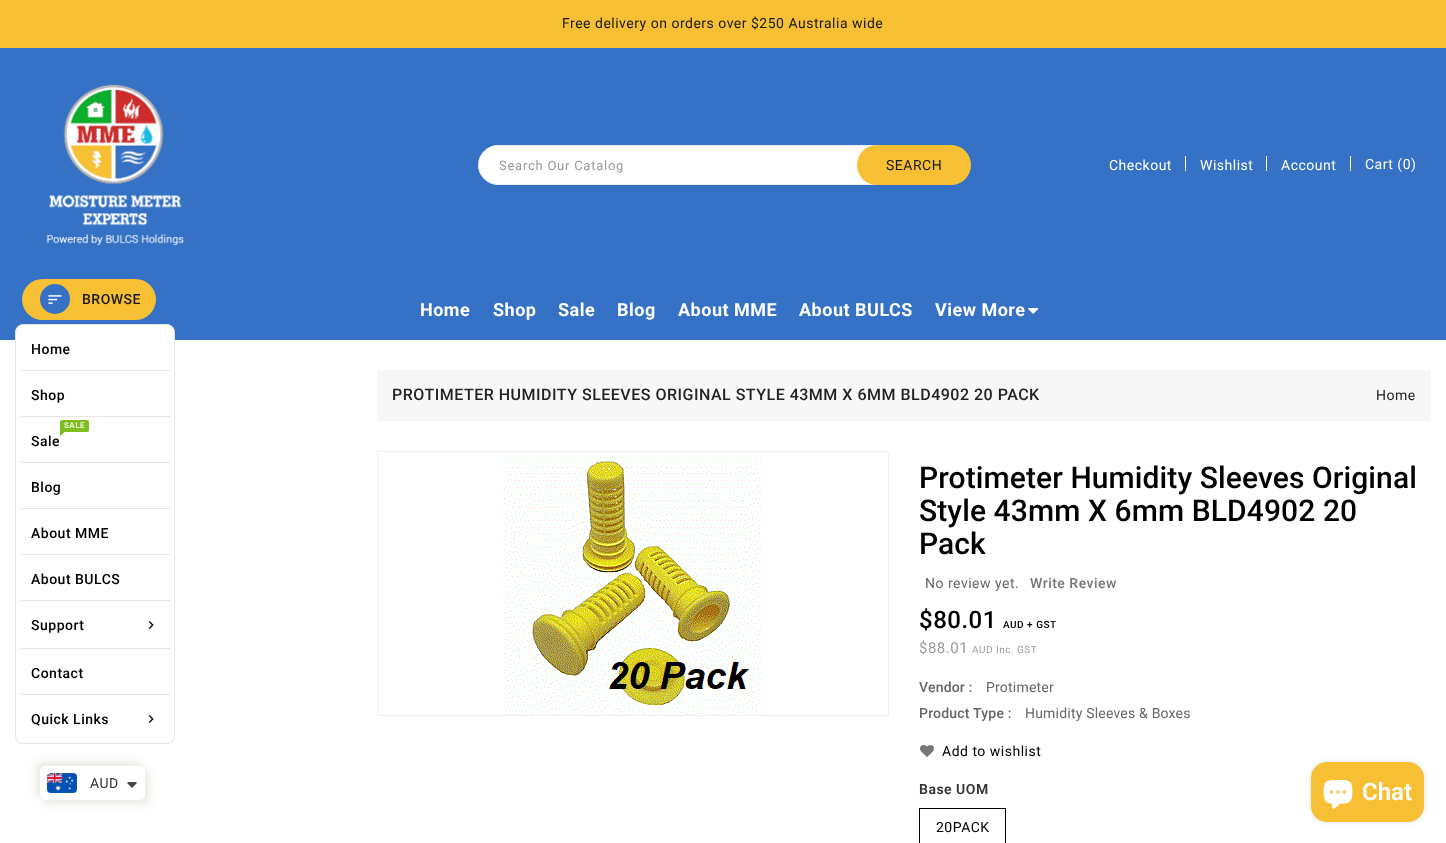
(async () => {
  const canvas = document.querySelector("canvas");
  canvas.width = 1446;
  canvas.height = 843;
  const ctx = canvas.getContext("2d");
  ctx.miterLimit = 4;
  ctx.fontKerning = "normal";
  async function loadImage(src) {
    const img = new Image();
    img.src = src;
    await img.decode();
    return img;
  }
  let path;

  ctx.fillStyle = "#ffffff";
  ctx.fillRect(0, 0, 1446, 843);
  ctx.fillStyle = "#3571c4";
  ctx.fillRect(0, 48, 1446, 292);
  ctx.fillStyle = "#f7c034";
  ctx.fillRect(0, 0, 1446, 48);
  ctx.drawImage(await loadImage("img/1.png"), 46, 84, 138, 162);
  ctx.fillStyle = "#ffffff";
  ctx.beginPath();
  ctx.roundRect(478.5, 145.5, 489, 39, 19.5);
  ctx.fill();
  ctx.strokeStyle = "#eeeeee";
  ctx.stroke();
  ctx.fillStyle = "#f7c034";
  ctx.beginPath();
  ctx.roundRect(857, 145, 114, 40, 20);
  ctx.fill();
  for (const [x, y, w, h, color] of [
    [1185, 156, 1, 15, "#ffffff"],
    [1266, 156, 1, 15, "#ffffff"],
    [1350, 156, 1, 15, "#ffffff"],
  ]) {
    ctx.fillStyle = color;
    ctx.fillRect(x, y, w, h);
  }
  ctx.fillStyle = "#f7c034";
  ctx.beginPath();
  ctx.roundRect(22, 279, 134, 41, 20.5);
  ctx.fill();
  ctx.fillStyle = "#3571c4";
  ctx.beginPath();
  ctx.arc(55, 299, 15, 0, Math.PI * 2);
  ctx.fill();
  ctx.drawImage(await loadImage("img/2.png"), 48, 295, 14, 9);
  ctx.fillStyle = "#ffffff";
  ctx.beginPath();
  ctx.roundRect(15.5, 324.5, 159, 419, 7.5);
  ctx.fill();
  ctx.strokeStyle = "#e5e5e5";
  ctx.stroke();
  ctx.fillStyle = "#e5e5e5";
  ctx.fillRect(20, 370, 150, 1);
  ctx.fillRect(20, 416, 150, 1);
  ctx.fillStyle = "#7fbc1e";
  ctx.beginPath();
  ctx.roundRect(60, 420, 29, 12, 2);
  ctx.fill();
  path = new Path2D("M60 431H66L60 436Z");
  ctx.fill(path);
  for (const [x, y, w, h, color] of [
    [20, 462, 150, 1, "#e5e5e5"],
    [20, 508, 150, 1, "#e5e5e5"],
    [20, 554, 150, 1, "#e5e5e5"],
    [20, 600, 150, 1, "#e5e5e5"],
  ]) {
    ctx.fillStyle = color;
    ctx.fillRect(x, y, w, h);
  }
  ctx.drawImage(await loadImage("img/3.png"), 148, 621, 6, 8);
  ctx.fillRect(20, 648, 150, 1);
  ctx.fillRect(20, 694, 150, 1);
  ctx.drawImage(await loadImage("img/3.png"), 148, 715, 6, 8);
  ctx.drawImage(await loadImage("img/4.png"), 1028, 308, 11, 6);
  ctx.fillStyle = "#f7f7f7";
  ctx.fillRect(377, 370, 1054, 51);
  ctx.strokeStyle = "#eeeeee";
  ctx.strokeRect(377.5, 451.5, 511, 264);
  ctx.drawImage(await loadImage("img/5.png"), 503, 457, 259, 258);
  ctx.drawImage(await loadImage("img/6.png"), 920, 745, 14, 12);
  ctx.strokeStyle = "#000000";
  ctx.strokeRect(919.5, 808.5, 86, 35);
  ctx.fillStyle = "#e8e8e2";
  ctx.filter = "blur(4.5px)";
  ctx.beginPath();
  ctx.roundRect(36, 762, 105, 34, 5);
  ctx.fill();
  ctx.filter = "none";
  ctx.filter = "blur(4.5px)";
  ctx.beginPath();
  ctx.roundRect(44, 770, 105, 34, 5);
  ctx.fill();
  ctx.filter = "none";
  ctx.fillStyle = "#ffffff";
  ctx.beginPath();
  ctx.roundRect(40, 766, 105, 34, 5);
  ctx.fill();
  ctx.drawImage(await loadImage("img/7.png"), 47, 773, 30, 20);
  ctx.fillStyle = "#474942";
  path = new Path2D("M129 782C128 782 127.5 782.5 127 783L132 788L137 783L136 782Z");
  ctx.fill(path);
  ctx.fillStyle = "rgba(0, 0, 0, 0.15)";
  ctx.filter = "blur(2.5px)";
  ctx.beginPath();
  ctx.roundRect(1311, 762, 113, 60, 16);
  ctx.fill();
  ctx.filter = "none";
  ctx.fillStyle = "#f7c034";
  ctx.beginPath();
  ctx.roundRect(1311, 762, 113, 60, 16);
  ctx.fill();
  ctx.drawImage(await loadImage("img/8.png"), 1323, 780, 30, 29);
  ctx.letterSpacing = "0.5px";
  ctx.font = "14px Roboto";
  ctx.fillStyle = "#1a1a1a";
  ctx.fillText("Free delivery on orders over $250 Australia wide", 562, 28);
  ctx.letterSpacing = "0.75px";
  ctx.font = "13px Roboto";
  ctx.fillStyle = "#999999";
  ctx.fillText("Search Our Catalog", 499, 170);
  ctx.letterSpacing = "0.5px";
  ctx.font = "14px Roboto";
  ctx.fillStyle = "#1a1a1a";
  ctx.fillText("SEARCH", 886, 170);
  ctx.fillStyle = "#ffffff";
  for (const [text, x, y] of [
    ["Checkout", 1109, 170],
    ["Wishlist", 1200, 170],
    ["Account", 1281, 170],
    ["Cart (0)", 1365, 169],
  ]) {
    ctx.fillText(text, x, y);
  }
  ctx.font = "500 14px Roboto";
  ctx.fillStyle = "#1a1a1a";
  ctx.fillText("BROWSE", 82, 304);
  ctx.fillStyle = "#000000";
  ctx.fillText("Home", 31, 354);
  ctx.fillText("Shop", 31, 400);
  ctx.font = "500 8px Roboto";
  ctx.fillStyle = "#ffffff";
  ctx.fillText("SALE", 64, 428);
  ctx.font = "500 14px Roboto";
  ctx.fillStyle = "#000000";
  for (const [text, x, y] of [
    ["Sale", 31, 446],
    ["Blog", 31, 492],
    ["About MME", 31, 538],
    ["About BULCS", 31, 584],
    ["Support", 31, 630],
    ["Contact", 31, 678],
    ["Quick Links", 31, 724],
  ]) {
    ctx.fillText(text, x, y);
  }
  ctx.font = "bold 18px Roboto";
  ctx.fillStyle = "#ffffff";
  for (const [text, x, y] of [
    ["Home", 420, 316],
    ["Shop", 493, 316],
    ["Sale", 558, 316],
    ["Blog", 617, 316],
    ["About MME", 678, 316],
    ["About BULCS", 799, 316],
    ["View More", 935, 316],
  ]) {
    ctx.fillText(text, x, y);
  }
  ctx.font = "500 16px Roboto";
  ctx.fillStyle = "#232323";
  ctx.fillText("PROTIMETER HUMIDITY SLEEVES ORIGINAL STYLE 43MM X 6MM BLD4902 20 PACK", 392, 400);
  ctx.font = "14px Roboto";
  ctx.fillText("Home", 1376, 400);
  ctx.letterSpacing = "0.1px";
  ctx.font = "500 30px Roboto";
  ctx.fillStyle = "#000000";
  for (const [text, x, y] of [
    ["Protimeter Humidity Sleeves Original", 919, 488],
    ["Style 43mm X 6mm BLD4902 20", 919, 521],
    ["Pack", 919, 554],
  ]) {
    ctx.fillText(text, x, y);
  }
  ctx.letterSpacing = "0.5px";
  ctx.font = "14px Roboto";
  ctx.fillStyle = "#666666";
  ctx.fillText("No review yet.", 925, 588);
  ctx.font = "500 14px Roboto";
  ctx.fillStyle = "#777777";
  ctx.fillText("Write Review", 1030, 588);
  ctx.font = "500 24px Roboto";
  ctx.fillStyle = "#000000";
  ctx.fillText("$80.01", 919, 628);
  ctx.font = "500 10px Roboto";
  ctx.fillText("AUD + GST", 1003, 628);
  ctx.font = "15px Roboto";
  ctx.fillStyle = "#999999";
  ctx.fillText("$88.01", 919, 653);
  ctx.font = "10px Roboto";
  ctx.fillText("AUD Inc. GST", 972, 653);
  ctx.letterSpacing = "0.2px";
  ctx.font = "500 14px Roboto";
  ctx.fillStyle = "#666666";
  ctx.fillText("Vendor :", 919, 692);
  ctx.font = "14px Roboto";
  ctx.fillText("Protimeter", 986, 692);
  ctx.font = "500 14px Roboto";
  ctx.fillText("Product Type :", 919, 718);
  ctx.font = "14px Roboto";
  ctx.fillText("Humidity Sleeves & Boxes", 1025, 718);
  ctx.letterSpacing = "0.5px";
  ctx.fillStyle = "#000000";
  ctx.fillText("Add to wishlist", 942, 756);
  ctx.font = "600 14px Roboto";
  ctx.fillStyle = "#333333";
  ctx.fillText("Base UOM", 919, 794);
  ctx.font = "14px Roboto";
  ctx.fillStyle = "#000000";
  ctx.fillText("20PACK", 936, 832);
  ctx.fillStyle = "#333333";
  ctx.fillText("AUD", 90, 788);
  ctx.letterSpacing = "0px";
  ctx.font = "600 24px Roboto";
  ctx.fillStyle = "#ffffff";
  ctx.fillText("Chat", 1362, 800);
})();
